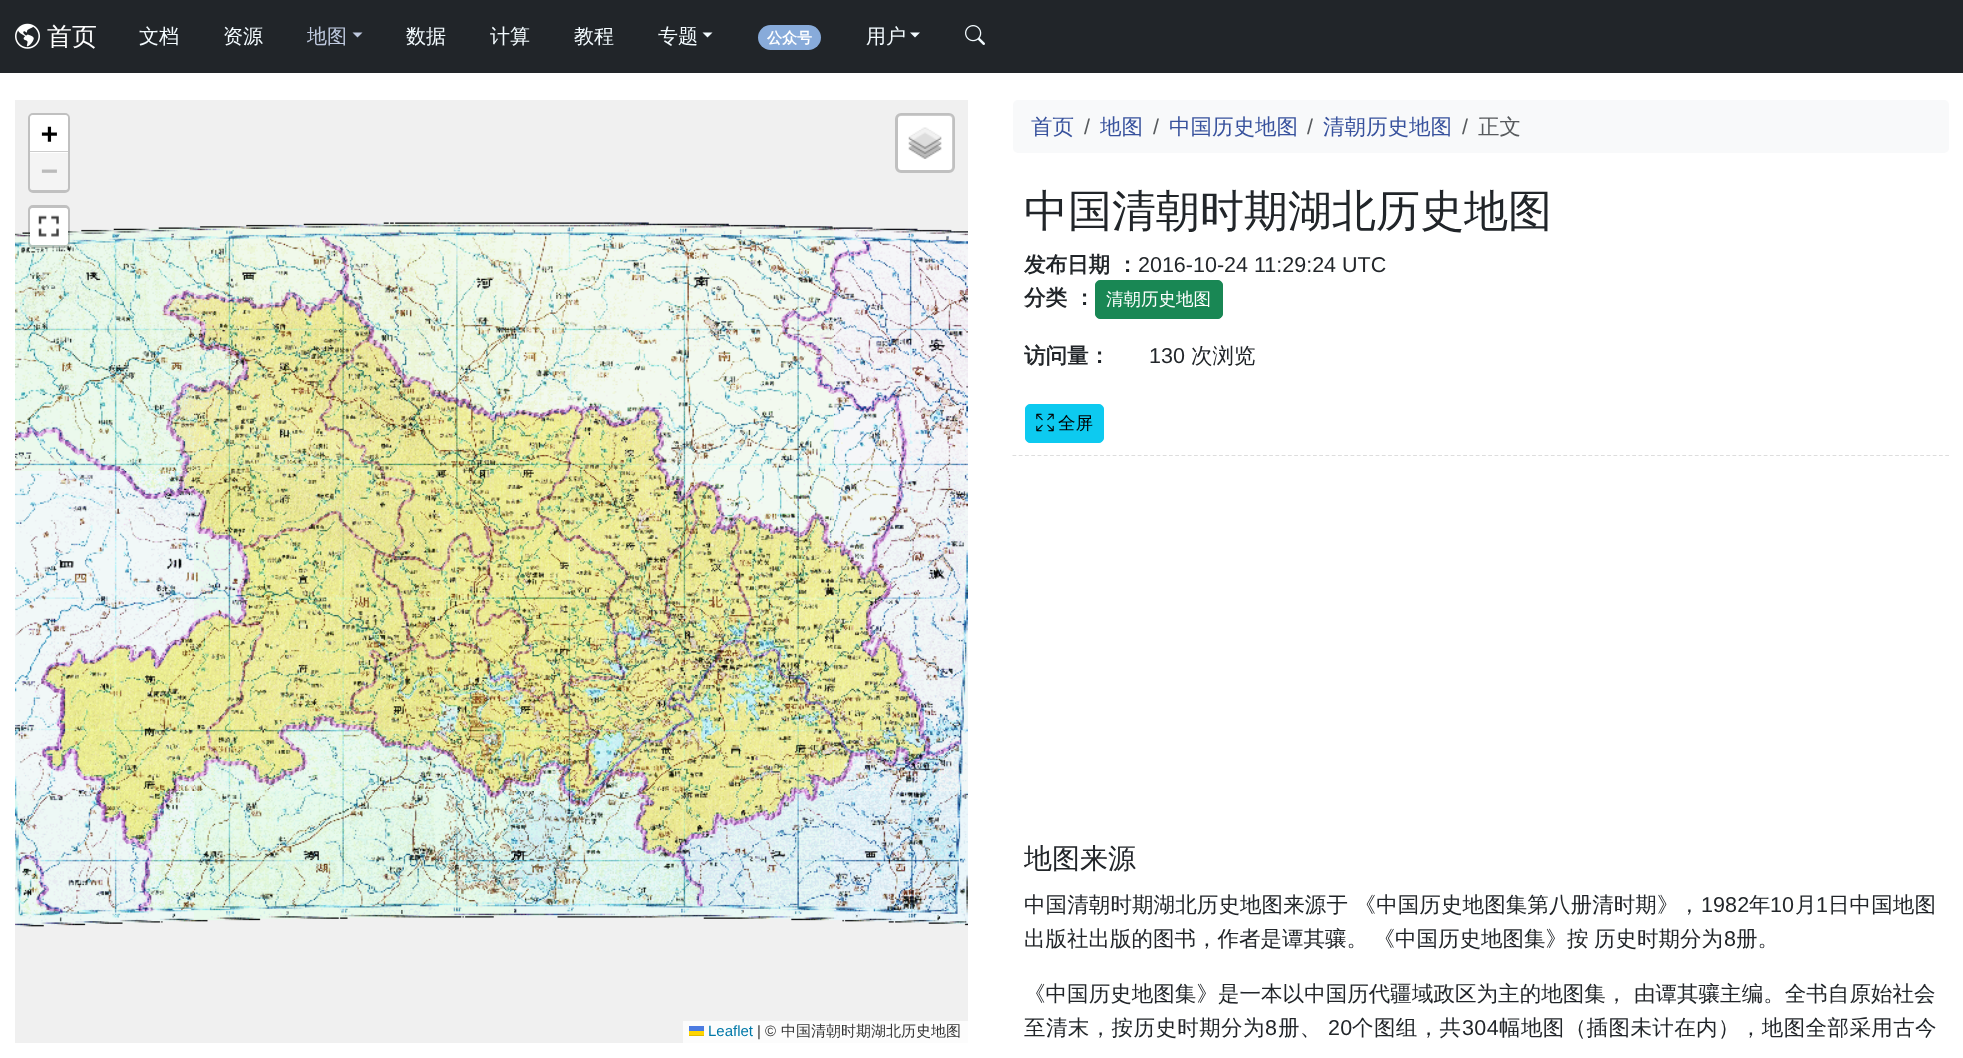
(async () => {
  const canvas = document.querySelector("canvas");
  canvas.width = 1963;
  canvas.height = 1058;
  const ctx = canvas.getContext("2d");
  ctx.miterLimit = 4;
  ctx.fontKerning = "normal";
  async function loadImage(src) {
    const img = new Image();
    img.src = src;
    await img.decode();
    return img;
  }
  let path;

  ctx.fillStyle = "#ffffff";
  ctx.fillRect(0, 0, 1963, 1058);
  ctx.fillStyle = "#212529";
  ctx.fillRect(0, 0, 1963, 73);
  ctx.drawImage(await loadImage("img/1.png"), 15, 23, 25, 26);
  ctx.fillStyle = "#bfc9df";
  path = new Path2D("M352.5 32.5H362.5L357.5 37.5Z");
  ctx.fill(path);
  ctx.fillStyle = "#f3fbff";
  path = new Path2D("M702.5 32.5H712.5L707.5 37.5Z");
  ctx.fill(path);
  ctx.fillStyle = "#88abda";
  ctx.beginPath();
  ctx.roundRect(758, 25, 63, 25, 12.5);
  ctx.fill();
  ctx.fillStyle = "#f3fbff";
  path = new Path2D("M910 32.5H920L915 37.5Z");
  ctx.fill(path);
  ctx.drawImage(await loadImage("img/2.png"), 965, 25, 20, 20);
  ctx.fillStyle = "#f0f0f0";
  ctx.fillRect(15, 100, 953, 943);
  ctx.beginPath();
  ctx.roundRect(29.5, 114.5, 39, 77, 3.5);
  ctx.strokeStyle = "#c0c0c0";
  ctx.lineWidth = 3;
  ctx.stroke();
  ctx.fillStyle = "#ffffff";
  ctx.beginPath();
  ctx.roundRect(30, 115, 38, 38, [2.5, 2.5, 0, 0]);
  ctx.fill();
  ctx.fillStyle = "#cccccc";
  ctx.fillRect(30, 151, 38, 1);
  ctx.fillStyle = "#f4f4f4";
  ctx.beginPath();
  ctx.roundRect(30, 153, 38, 37, [0, 0, 2.5, 2.5]);
  ctx.fill();
  ctx.drawImage(await loadImage("img/6.png"), 193, 222, 321, 250);
  ctx.drawImage(await loadImage("img/5.png"), 15, 227, 179, 244);
  ctx.beginPath();
  ctx.roundRect(29.5, 206.5, 39, 40, 3.5);
  ctx.strokeStyle = "rgba(0, 0, 0, 0.2)";
  ctx.stroke();
  ctx.fillStyle = "#ffffff";
  ctx.beginPath();
  ctx.roundRect(30, 208, 38, 37, 2.5);
  ctx.fill();
  ctx.drawImage(await loadImage("img/3.png"), 38, 215, 21, 22);
  ctx.beginPath();
  ctx.roundRect(898, 115, 55, 55, 4);
  ctx.fill();
  ctx.beginPath();
  ctx.roundRect(896.5, 114.5, 57, 57, 4.5);
  ctx.stroke();
  ctx.drawImage(await loadImage("img/4.png"), 908, 127, 34, 32);
  for (const [x, y, w, h, color] of [
    [683, 1021, 285, 22, "#fcfcfc"],
    [689, 1026, 15, 5, "#4c7be1"],
    [689, 1031, 15, 4, "#ffd500"],
    [689, 1035, 15, 1, "#e0bc00"],
  ]) {
    ctx.fillStyle = color;
    ctx.fillRect(x, y, w, h);
  }
  ctx.drawImage(await loadImage("img/7.png"), 513, 222, 321, 250);
  ctx.drawImage(await loadImage("img/8.png"), 834, 227, 134, 244);
  ctx.drawImage(await loadImage("img/9.png"), 15, 471, 179, 320);
  ctx.drawImage(await loadImage("img/10.png"), 194, 471, 320, 320);
  ctx.drawImage(await loadImage("img/11.png"), 513, 471, 321, 320);
  ctx.drawImage(await loadImage("img/12.png"), 834, 471, 134, 320);
  ctx.drawImage(await loadImage("img/13.png"), 15, 791, 179, 136);
  ctx.drawImage(await loadImage("img/14.png"), 194, 791, 320, 131);
  ctx.drawImage(await loadImage("img/15.png"), 514, 791, 320, 130);
  ctx.drawImage(await loadImage("img/16.png"), 834, 791, 134, 135);
  ctx.fillStyle = "#f8f9fa";
  ctx.beginPath();
  ctx.roundRect(1013, 100, 936, 53, 5);
  ctx.fill();
  path = new Path2D("M1012.5 455.5H1949");
  ctx.strokeStyle = "#dddddd";
  ctx.lineWidth = 1.2;
  ctx.setLineDash([3.75, 2.51]);
  ctx.stroke(path);
  ctx.fillStyle = "#198754";
  ctx.beginPath();
  ctx.roundRect(1095.5, 280.5, 127, 38, 4.5);
  ctx.fill();
  ctx.strokeStyle = "#198754";
  ctx.lineWidth = 1;
  ctx.setLineDash([]);
  ctx.stroke();
  ctx.fillStyle = "#0dcaf0";
  ctx.beginPath();
  ctx.roundRect(1025.5, 404.5, 78, 38, 4.5);
  ctx.fill();
  ctx.strokeStyle = "#0dcaf0";
  ctx.stroke();
  ctx.drawImage(await loadImage("img/17.png"), 1036, 413, 18, 19);
  ctx.font = "500 25px WenQuanYi Zen Hei";
  ctx.fillStyle = "#ffffff";
  ctx.fillText("首页", 47, 45);
  ctx.font = "500 20px WenQuanYi Zen Hei";
  ctx.fillStyle = "#f3fbff";
  ctx.fillText("文档", 139, 43);
  ctx.fillText("资源", 223, 43);
  ctx.fillStyle = "#bfc9df";
  ctx.fillText("地图", 307, 43);
  ctx.fillStyle = "#f3fbff";
  for (const [text, x, y] of [
    ["数据", 406, 43],
    ["计算", 490, 43],
    ["教程", 574, 43],
    ["专题", 658, 43],
  ]) {
    ctx.fillText(text, x, y);
  }
  ctx.font = "bold 15px WenQuanYi Zen Hei";
  ctx.fillStyle = "#ffffff";
  ctx.fillText("公众号", 767, 43);
  ctx.font = "500 20px WenQuanYi Zen Hei";
  ctx.fillStyle = "#f3fbff";
  ctx.fillText("用户", 866, 43);
  ctx.font = "bold 28px DejaVu Sans Mono";
  ctx.fillStyle = "#000000";
  ctx.fillText("+", 41, 143);
  ctx.fillStyle = "#bbbbbb";
  ctx.fillText("−", 41, 180);
  ctx.font = "15px Liberation Sans";
  ctx.fillStyle = "#0078a8";
  ctx.fillText("Leaflet", 708, 1036);
  ctx.fillStyle = "#333333";
  ctx.fillText("| ©", 757, 1036);
  ctx.font = "500 15px WenQuanYi Zen Hei";
  ctx.fillText("中国清朝时期湖北历史地图", 781, 1036);
  ctx.font = "500 21.5px WenQuanYi Zen Hei";
  ctx.fillStyle = "#38529d";
  ctx.fillText("首页", 1031, 134);
  ctx.font = "21.5px Liberation Sans";
  ctx.fillStyle = "#575a5d";
  ctx.fillText("/", 1084, 134);
  ctx.font = "500 21.5px WenQuanYi Zen Hei";
  ctx.fillStyle = "#38529d";
  ctx.fillText("地图", 1100, 134);
  ctx.font = "21.5px Liberation Sans";
  ctx.fillStyle = "#575a5d";
  ctx.fillText("/", 1153, 134);
  ctx.font = "500 21.5px WenQuanYi Zen Hei";
  ctx.fillStyle = "#38529d";
  ctx.fillText("中国历史地图", 1169, 134);
  ctx.font = "21.5px Liberation Sans";
  ctx.fillStyle = "#575a5d";
  ctx.fillText("/", 1307, 134);
  ctx.font = "500 21.5px WenQuanYi Zen Hei";
  ctx.fillStyle = "#38529d";
  ctx.fillText("清朝历史地图", 1323, 134);
  ctx.font = "21.5px Liberation Sans";
  ctx.fillStyle = "#575a5d";
  ctx.fillText("/", 1462, 134);
  ctx.font = "500 21.5px WenQuanYi Zen Hei";
  ctx.fillText("正文", 1478, 134);
  ctx.font = "500 44px WenQuanYi Zen Hei";
  ctx.fillStyle = "#212529";
  ctx.fillText("中国清朝时期湖北历史地图", 1024, 226);
  ctx.font = "bold 21.5px WenQuanYi Zen Hei";
  ctx.fillText("发布日期 ：", 1024, 272);
  ctx.font = "21.5px Liberation Sans";
  ctx.fillText("2016-10-24 11:29:24 UTC", 1138, 272);
  ctx.font = "bold 21.5px WenQuanYi Zen Hei";
  ctx.fillText("分类 ：", 1024, 305);
  ctx.font = "500 17.5px WenQuanYi Zen Hei";
  ctx.fillStyle = "#ffffff";
  ctx.fillText("清朝历史地图", 1106, 305);
  ctx.font = "bold 21.5px WenQuanYi Zen Hei";
  ctx.fillStyle = "#212529";
  ctx.fillText("访问量：", 1024, 363);
  ctx.font = "21.5px Liberation Sans";
  ctx.fillText("130", 1149, 363);
  ctx.font = "500 21.5px WenQuanYi Zen Hei";
  ctx.fillText("次浏览", 1191, 363);
  ctx.font = "500 17.5px WenQuanYi Zen Hei";
  ctx.fillStyle = "#000000";
  ctx.fillText("全屏", 1058, 429);
  ctx.font = "500 28px WenQuanYi Zen Hei";
  ctx.fillStyle = "#212529";
  ctx.fillText("地图来源", 1024, 868);
  ctx.letterSpacing = "0.1px";
  ctx.font = "500 21.5px WenQuanYi Zen Hei";
  ctx.fillText("中国清朝时期湖北历史地图来源于 《中国历史地图集第八册清时期》，", 1024, 912);
  ctx.font = "21.5px Liberation Sans";
  ctx.fillText("1982", 1701, 912);
  ctx.font = "500 21.5px WenQuanYi Zen Hei";
  ctx.fillText("年", 1749, 912);
  ctx.font = "21.5px Liberation Sans";
  ctx.fillText("10", 1770, 912);
  ctx.font = "500 21.5px WenQuanYi Zen Hei";
  ctx.fillText("月", 1795, 912);
  ctx.font = "21.5px Liberation Sans";
  ctx.fillText("1", 1816, 912);
  ctx.font = "500 21.5px WenQuanYi Zen Hei";
  ctx.fillText("日中国地图", 1828, 912);
  ctx.letterSpacing = "0px";
  ctx.wordSpacing = "-1px";
  ctx.fillText("出版社出版的图书，作者是谭其骧。 《中国历史地图集》按 历史时期分为", 1024, 946);
  ctx.wordSpacing = "0px";
  ctx.font = "21.5px Liberation Sans";
  ctx.fillText("8", 1724, 946);
  ctx.font = "500 21.5px WenQuanYi Zen Hei";
  ctx.fillText("册。", 1736, 946);
  ctx.letterSpacing = "0.05px";
  ctx.fillText("《中国历史地图集》是一本以中国历代疆域政区为主的地图集， 由谭其骧主编。全书自原始社会", 1024, 1001);
  ctx.letterSpacing = "0.4px";
  ctx.fillText("至清末，按历史时期分为", 1024, 1035);
  ctx.font = "21.5px Liberation Sans";
  ctx.fillText("8", 1265, 1035);
  ctx.font = "500 21.5px WenQuanYi Zen Hei";
  ctx.fillText("册、", 1278, 1035);
  ctx.font = "21.5px Liberation Sans";
  ctx.fillText("20", 1328, 1035);
  ctx.font = "500 21.5px WenQuanYi Zen Hei";
  ctx.fillText("个图组，共", 1352, 1035);
  ctx.font = "21.5px Liberation Sans";
  ctx.fillText("304", 1462, 1035);
  ctx.font = "500 21.5px WenQuanYi Zen Hei";
  ctx.fillText("幅地图（插图未计在内），地图全部采用古今", 1499, 1035);
})();
